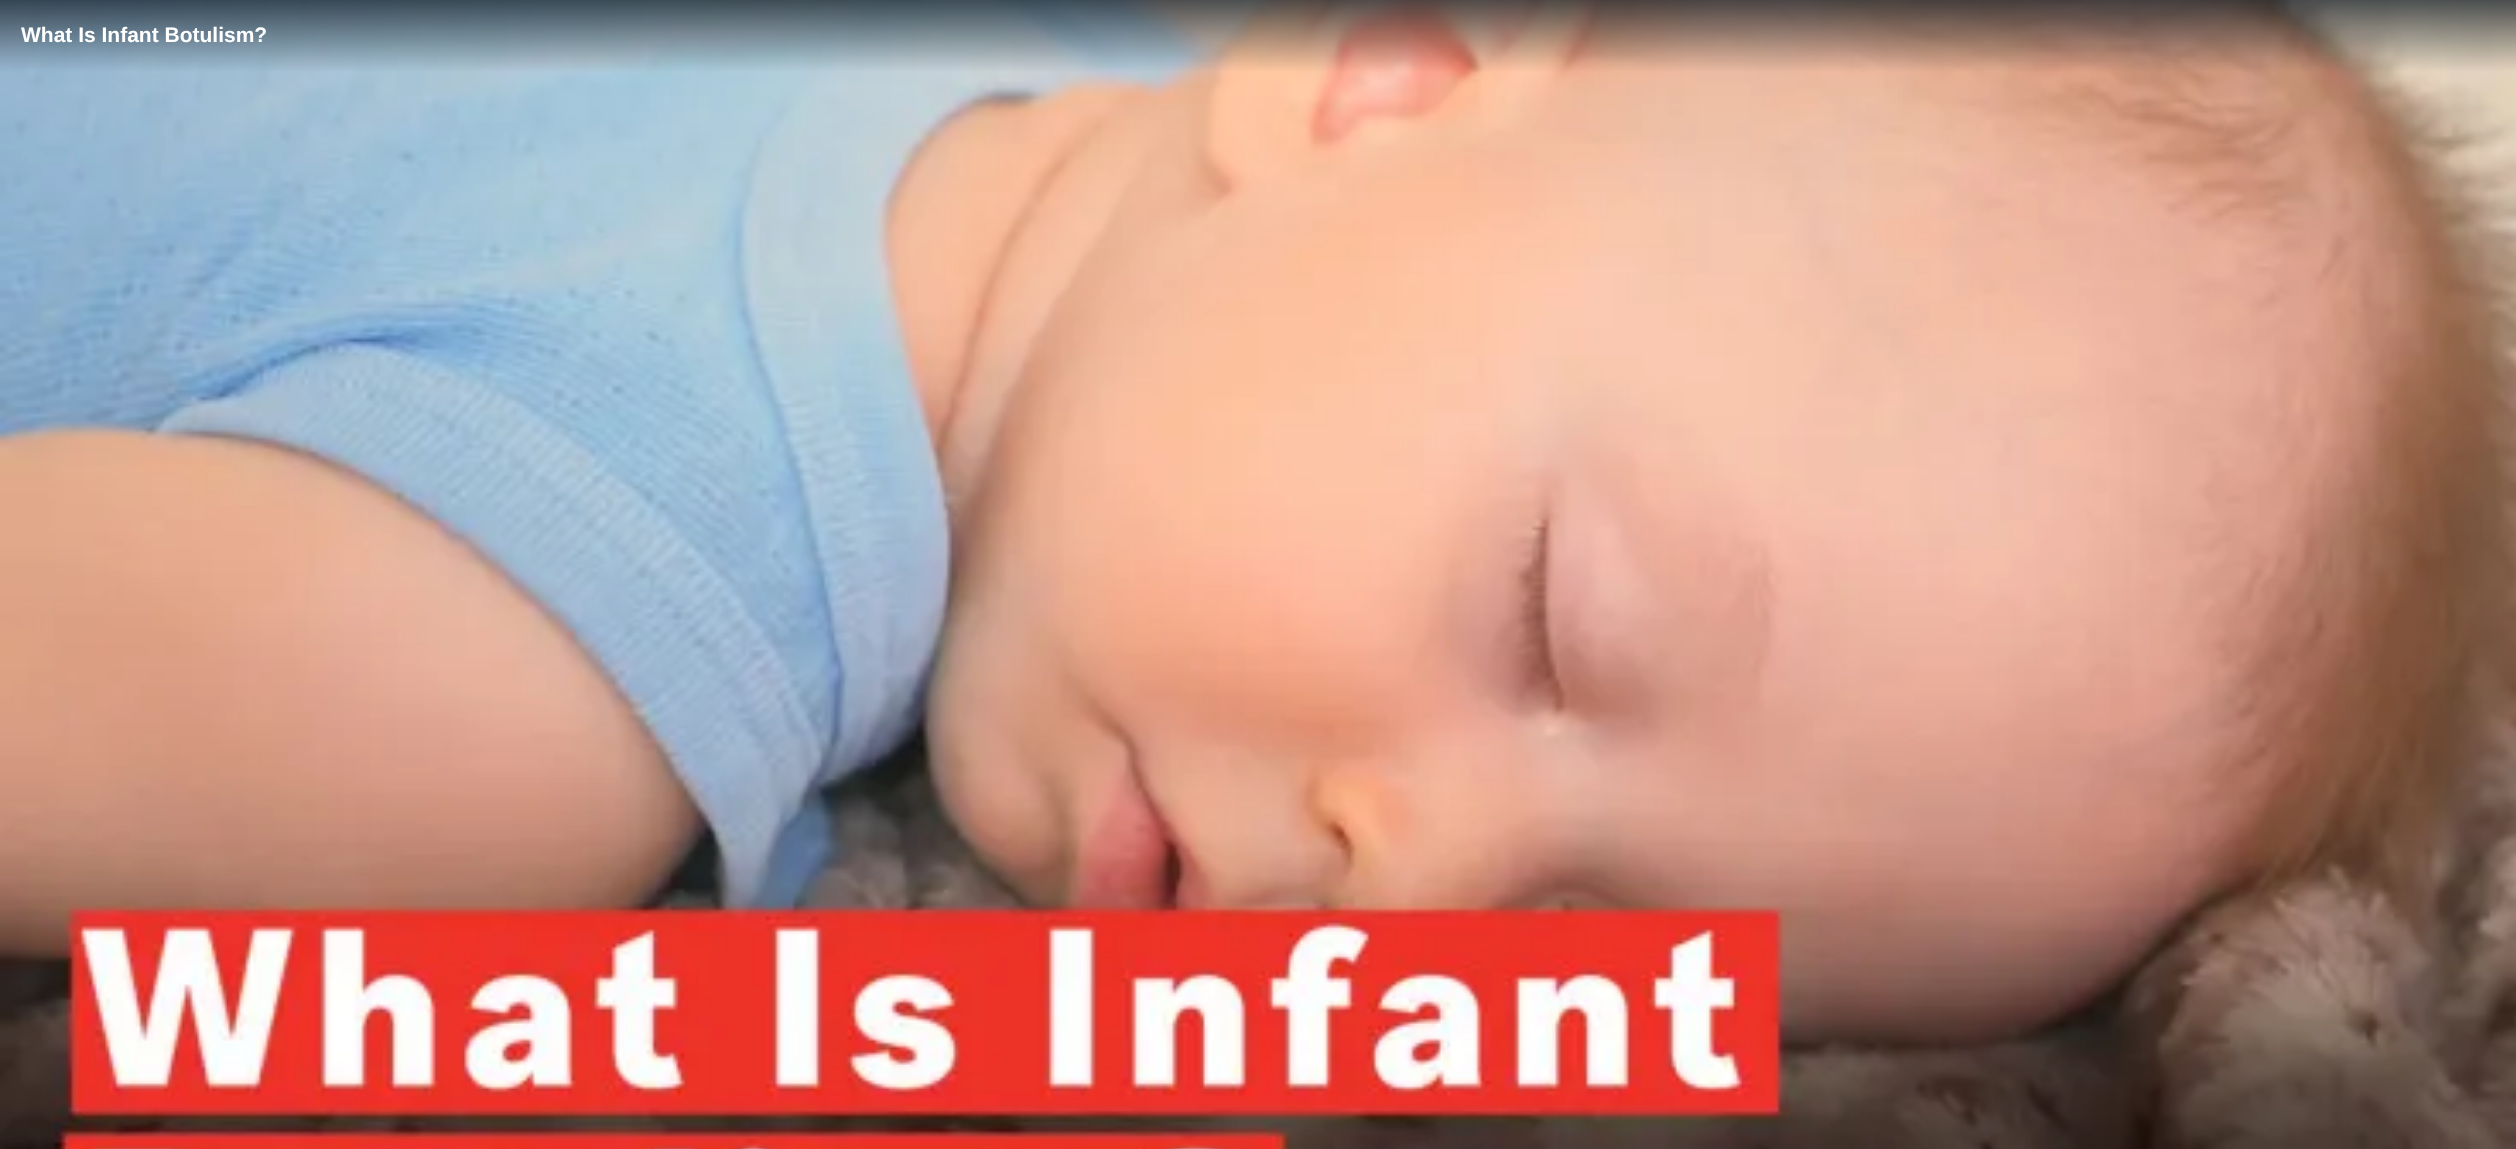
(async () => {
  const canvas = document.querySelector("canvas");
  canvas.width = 2516;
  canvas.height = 1149;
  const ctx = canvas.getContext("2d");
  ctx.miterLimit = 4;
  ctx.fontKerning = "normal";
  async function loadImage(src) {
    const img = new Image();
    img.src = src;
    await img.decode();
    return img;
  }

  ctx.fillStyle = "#ffffff";
  ctx.fillRect(0, 0, 2516, 1149);
  ctx.drawImage(await loadImage("img/1.png"), 0, 0, 2516, 1149);
  ctx.font = "bold 21px Liberation Sans";
  ctx.fillText("What Is Infant Botulism?", 21, 42);
})();
